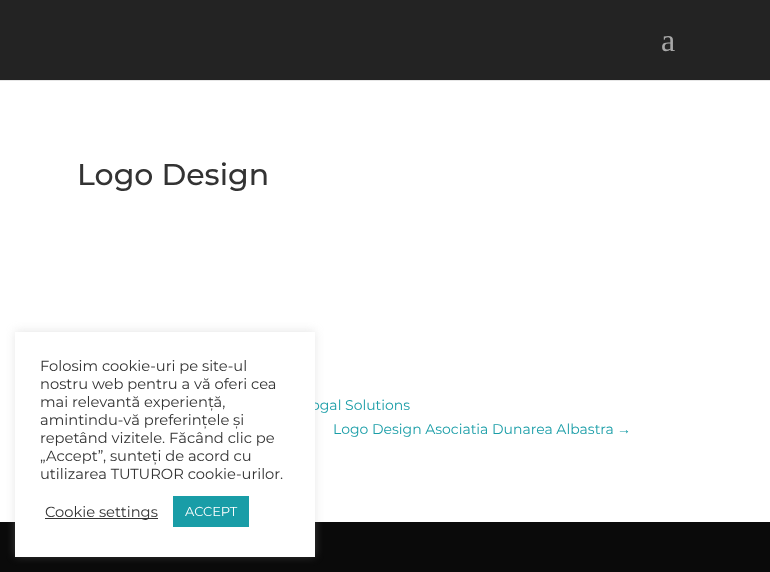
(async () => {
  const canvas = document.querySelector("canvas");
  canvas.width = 770;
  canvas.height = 572;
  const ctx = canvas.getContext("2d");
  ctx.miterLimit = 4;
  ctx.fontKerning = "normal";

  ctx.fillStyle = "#ffffff";
  ctx.fillRect(0, 0, 770, 572);
  for (const [x, y, w, h, color] of [
    [0, 80, 770, 1, "#e6e6e6"],
    [0, 0, 770, 80, "#232323"],
    [0, 522, 770, 50, "#0a0a0a"],
  ]) {
    ctx.fillStyle = color;
    ctx.fillRect(x, y, w, h);
  }
  ctx.fillStyle = "rgba(172, 171, 171, 0.3)";
  ctx.filter = "blur(5px)";
  ctx.beginPath();
  ctx.rect(15, 331, 300, 225);
  ctx.fill();
  ctx.filter = "none";
  ctx.font = "32px Liberation Serif";
  ctx.fillStyle = "#a7a7a7";
  ctx.fillText("a", 661, 51);
  ctx.font = "100 30px Montserrat";
  ctx.fillStyle = "#333333";
  ctx.fillText("Logo Design", 77, 185);
  ctx.font = "100 14px 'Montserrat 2'";
  ctx.fillStyle = "#199da7";
  ctx.fillText("ogal Solutions", 311, 410);
  ctx.fillText("Logo Design Asociatia Dunarea Albastra", 333, 434);
  ctx.font = "14px Liberation Sans";
  ctx.fillText("→", 617, 434);
  ctx.fillStyle = "#ffffff";
  ctx.fillRect(15, 332, 300, 225);
  ctx.font = "100 14.7px 'Montserrat 2'";
  ctx.fillStyle = "#333333";
  for (const [text, x, y] of [
    ["Folosim cookie-uri pe site-ul", 40, 371],
    ["nostru web pentru a vă oferi cea", 40, 389],
    ["mai relevantă experiență,", 40, 407],
    ["amintindu-vă preferințele și", 40, 425],
    ["repetând vizitele. Făcând clic pe", 40, 443],
    ["„Accept”, sunteți de acord cu", 40, 461],
    ["utilizarea TUTUROR cookie-urilor.", 40, 479],
  ]) {
    ctx.fillText(text, x, y);
  }
  ctx.fillRect(45, 518, 113, 1);
  ctx.fillText("Cookie settings", 45, 517);
  ctx.fillStyle = "#199da7";
  ctx.fillRect(173, 496, 76, 31);
  ctx.font = "100 13px 'Montserrat 2'";
  ctx.fillStyle = "#ffffff";
  ctx.fillText("ACCEPT", 185, 516);
})();
